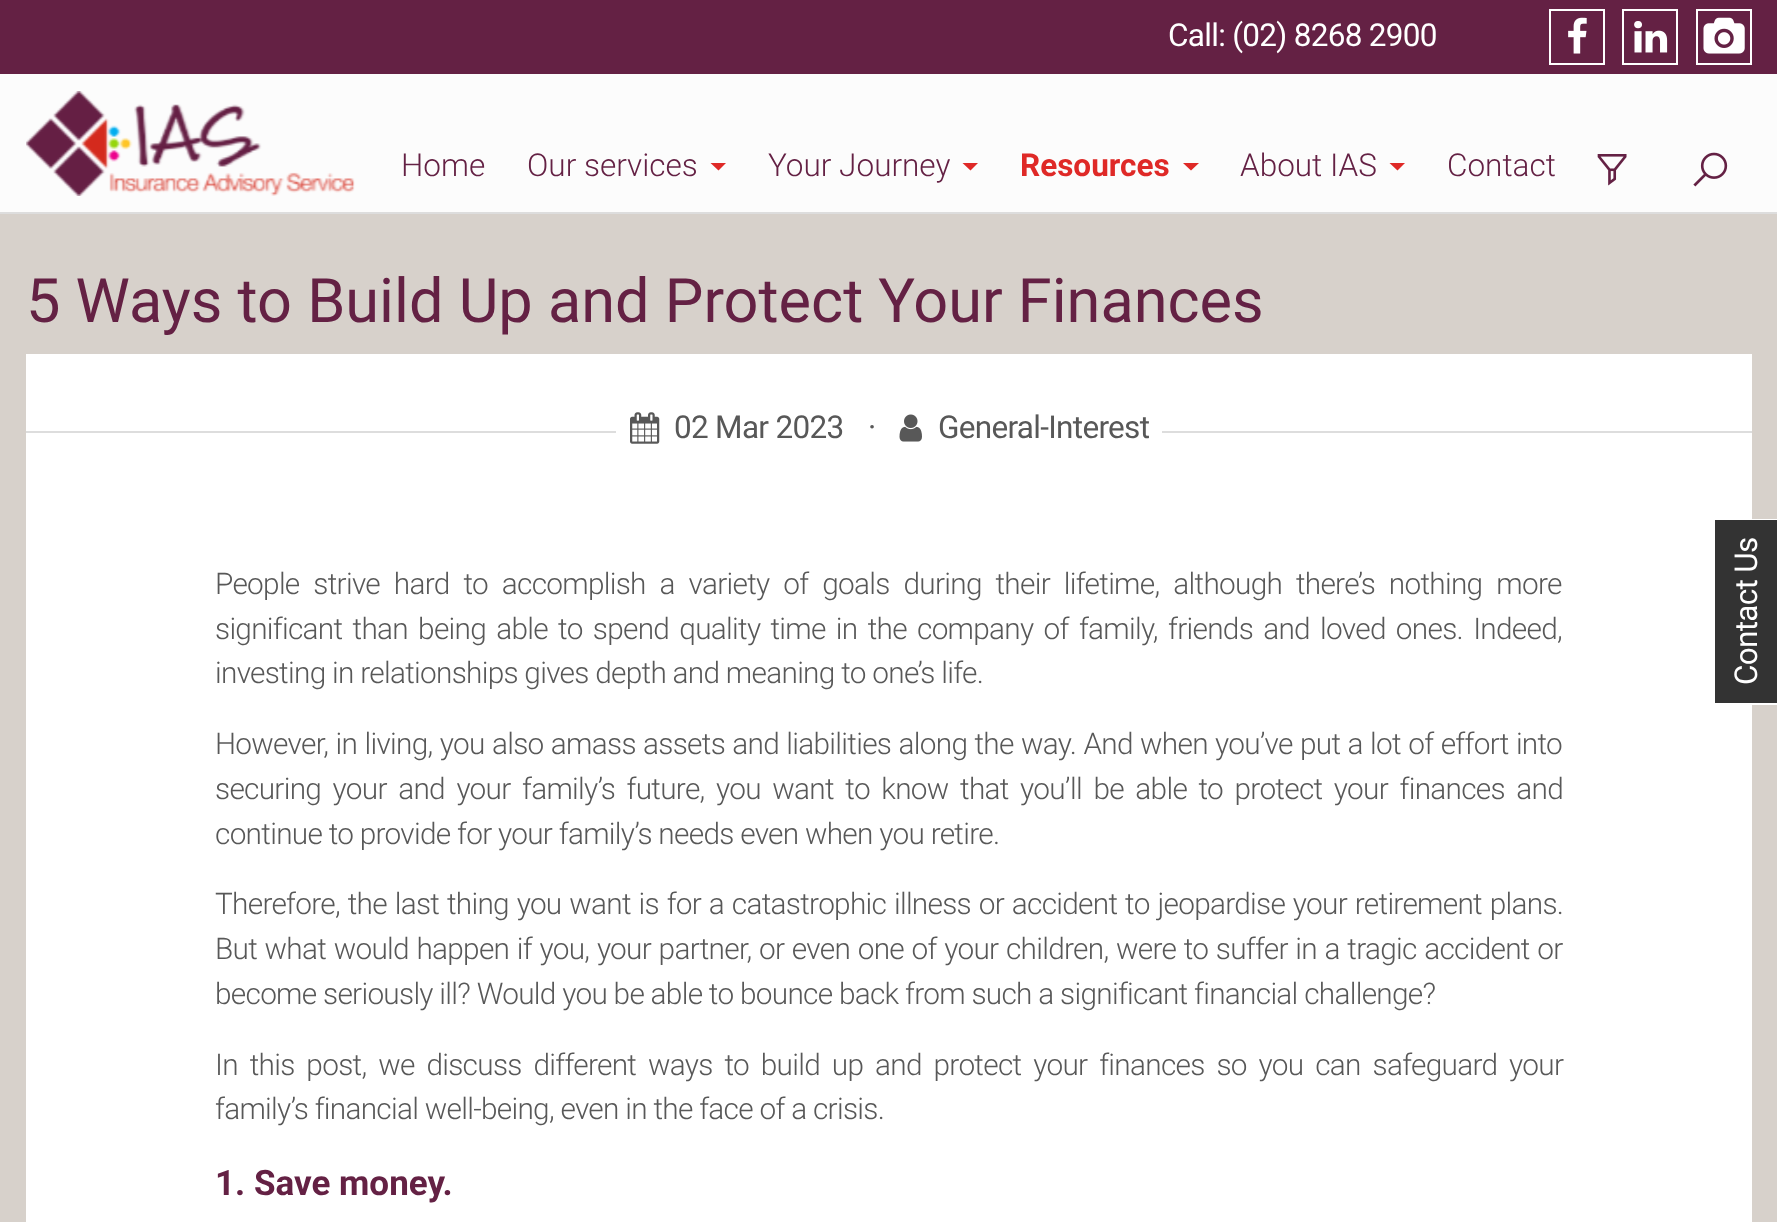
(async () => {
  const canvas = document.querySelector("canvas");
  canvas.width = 1777;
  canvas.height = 1222;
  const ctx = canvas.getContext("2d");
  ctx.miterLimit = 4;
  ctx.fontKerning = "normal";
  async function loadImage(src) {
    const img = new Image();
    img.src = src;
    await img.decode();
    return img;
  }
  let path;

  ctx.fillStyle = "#d7d1cb";
  ctx.fillRect(0, 0, 1777, 1222);
  ctx.fillStyle = "#fcfcfc";
  ctx.fillRect(0, 74, 1777, 138);
  ctx.fillStyle = "#642144";
  ctx.fillRect(0, 0, 1777, 74);
  ctx.strokeStyle = "#ffffff";
  ctx.lineWidth = 2;
  ctx.strokeRect(1550, 10, 54, 54);
  ctx.drawImage(await loadImage("img/1.png"), 1568, 17, 19, 37);
  ctx.strokeRect(1623, 10, 54, 54);
  ctx.drawImage(await loadImage("img/2.png"), 1634, 21, 34, 32);
  ctx.strokeRect(1697, 10, 54, 54);
  ctx.drawImage(await loadImage("img/3.png"), 1703, 17, 42, 37);
  ctx.drawImage(await loadImage("img/4.png"), 26, 91, 329, 105);
  ctx.fillStyle = "#df2927";
  path = new Path2D("M710.5 163H726L718.5 170.5Z");
  ctx.fill(path);
  path = new Path2D("M962.5 163H978L970.5 170.5Z");
  ctx.fill(path);
  path = new Path2D("M1183 163H1199L1191 170.5Z");
  ctx.fill(path);
  path = new Path2D("M1389.5 163H1405L1397.5 170.5Z");
  ctx.fill(path);
  ctx.drawImage(await loadImage("img/5.png"), 1597, 154, 30, 32);
  ctx.drawImage(await loadImage("img/6.png"), 1693, 152, 35, 35);
  for (const [x, y, w, h, color] of [
    [0, 212, 1777, 2, "#dddddd"],
    [26, 354, 1726, 868, "#ffffff"],
    [26, 431, 1726, 2, "#dddddd"],
    [616, 431, 546, 2, "#ffffff"],
  ]) {
    ctx.fillStyle = color;
    ctx.fillRect(x, y, w, h);
  }
  ctx.drawImage(await loadImage("img/7.png"), 630, 412, 30, 32);
  ctx.drawImage(await loadImage("img/8.png"), 899, 414, 23, 28);
  for (const [x, y, w, h, color] of [
    [1715, 520, 62, 183, "#333333"],
    [1752, 519, 25, 1, "#ffffff"],
    [1752, 703, 25, 2, "#ffffff"],
  ]) {
    ctx.fillStyle = color;
    ctx.fillRect(x, y, w, h);
  }
  ctx.letterSpacing = "-0.7px";
  ctx.font = "31.5px Roboto";
  ctx.fillText("Call: (02) 8268 2900", 1168, 46);
  ctx.letterSpacing = "0px";
  ctx.font = "300 31.5px Roboto";
  ctx.fillStyle = "#642144";
  for (const [text, x, y] of [
    ["Home", 401, 176],
    ["Our services", 527, 176],
    ["Your Journey", 768, 176],
  ]) {
    ctx.fillText(text, x, y);
  }
  ctx.font = "bold 31.5px Roboto";
  ctx.fillStyle = "#df2927";
  ctx.fillText("Resources", 1020, 176);
  ctx.font = "300 31.5px Roboto";
  ctx.fillStyle = "#642144";
  ctx.fillText("About IAS", 1240, 176);
  ctx.fillText("Contact", 1447, 176);
  ctx.font = "61.25px Roboto";
  ctx.fillText("5 Ways to Build Up and Protect Your Finances", 26, 322);
  ctx.letterSpacing = "-0.7px";
  ctx.font = "31.5px Roboto";
  ctx.fillStyle = "#585858";
  for (const [text, x, y] of [
    ["02 Mar 2023", 674, 438],
    ["·", 868, 438],
    ["General-Interest", 938, 438],
  ]) {
    ctx.fillText(text, x, y);
  }
  ctx.wordSpacing = "7.25px";
  ctx.font = "300 29.75px Roboto";
  ctx.fillText("People strive hard to accomplish a variety of goals during their lifetime, although there’s nothing more", 215, 594);
  ctx.wordSpacing = "3.6px";
  ctx.fillText("significant than being able to spend quality time in the company of family, friends and loved ones. Indeed,", 215, 639);
  ctx.wordSpacing = "0px";
  ctx.fillText("investing in relationships gives depth and meaning to one’s life.", 215, 683);
  ctx.wordSpacing = "0.75px";
  ctx.fillText("However, in living, you also amass assets and liabilities along the way. And when you’ve put a lot of effort into", 215, 754);
  ctx.wordSpacing = "4.9px";
  ctx.fillText("securing your and your family’s future, you want to know that you’ll be able to protect your finances and", 215, 799);
  ctx.wordSpacing = "0px";
  ctx.fillText("continue to provide for your family’s needs even when you retire.", 215, 844);
  ctx.wordSpacing = "1.2px";
  ctx.fillText("Therefore, the last thing you want is for a catastrophic illness or accident to jeopardise your retirement plans.", 215, 914);
  ctx.wordSpacing = "1px";
  ctx.fillText("But what would happen if you, your partner, or even one of your children, were to suffer in a tragic accident or", 215, 959);
  ctx.wordSpacing = "0px";
  ctx.fillText("become seriously ill? Would you be able to bounce back from such a significant financial challenge?", 215, 1004);
  ctx.wordSpacing = "5.25px";
  ctx.fillText("In this post, we discuss different ways to build up and protect your finances so you can safeguard your", 215, 1075);
  ctx.wordSpacing = "0px";
  ctx.fillText("family’s financial well-being, even in the face of a crisis.", 215, 1119);
  ctx.letterSpacing = "0px";
  ctx.font = "bold 35px Roboto";
  ctx.fillStyle = "#642144";
  ctx.fillText("1. Save money.", 215, 1195);
  ctx.letterSpacing = "-0.7px";
  ctx.font = "31.5px Roboto";
  ctx.fillStyle = "#ffffff";
  ctx.save();
  ctx.translate(1757, 685);
  ctx.rotate(-90 * Math.PI / 180);
  ctx.fillText("Contact Us", 0, 0);
  ctx.restore();
})();
